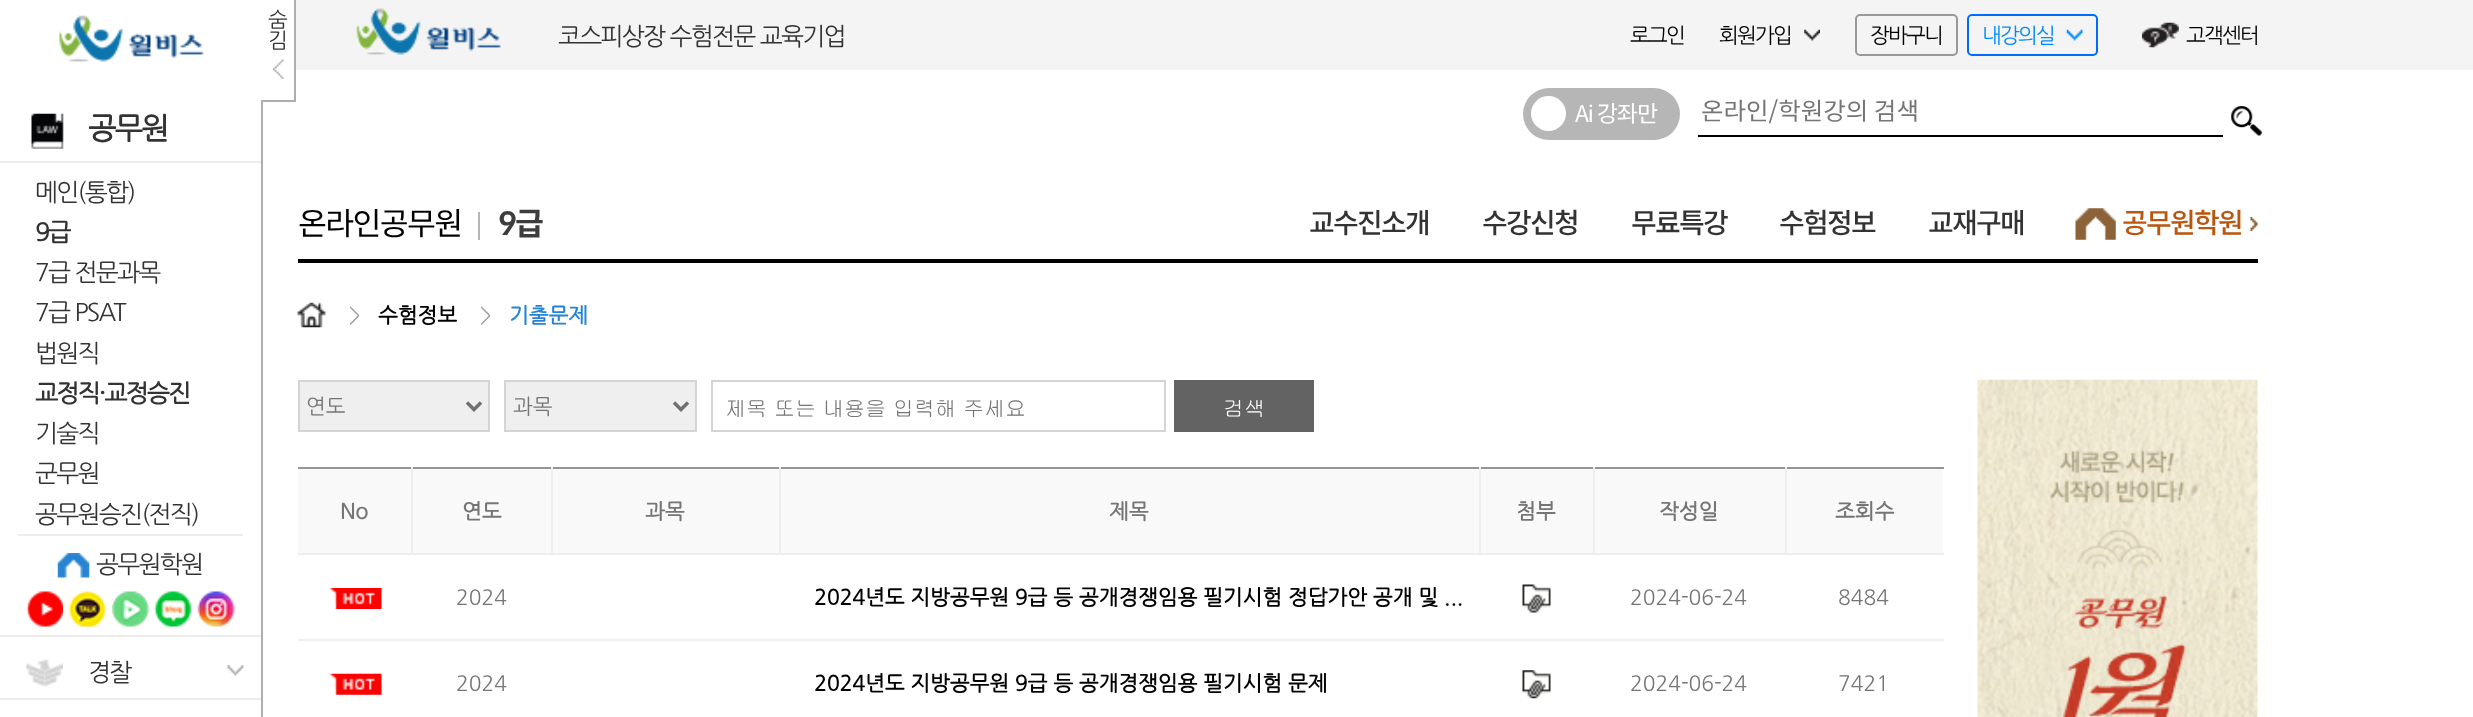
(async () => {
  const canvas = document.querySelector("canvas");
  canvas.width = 2473;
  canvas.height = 717;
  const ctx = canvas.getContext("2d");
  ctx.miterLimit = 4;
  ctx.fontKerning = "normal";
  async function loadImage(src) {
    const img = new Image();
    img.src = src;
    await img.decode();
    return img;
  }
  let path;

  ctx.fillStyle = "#ffffff";
  ctx.fillRect(0, 0, 2473, 717);
  ctx.fillStyle = "#aeaeae";
  ctx.fillRect(261, 102, 2, 615);
  ctx.drawImage(await loadImage("img/1.png"), 59, 15, 145, 47);
  ctx.fillRect(294, 0, 2, 102);
  ctx.fillRect(261, 100, 35, 2);
  ctx.drawImage(await loadImage("img/2.png"), 273, 59, 11, 20);
  ctx.fillStyle = "#ececec";
  ctx.fillRect(0, 161, 261, 2);
  ctx.drawImage(await loadImage("img/3.png"), 31, 113, 33, 36);
  ctx.fillRect(18, 534, 225, 2);
  ctx.drawImage(await loadImage("img/4.png"), 57, 553, 33, 25);
  ctx.drawImage(await loadImage("img/5.png"), 26, 591, 37, 36);
  ctx.drawImage(await loadImage("img/6.png"), 68, 591, 38, 36);
  ctx.drawImage(await loadImage("img/7.png"), 112, 591, 37, 36);
  ctx.drawImage(await loadImage("img/8.png"), 154, 590, 39, 37);
  ctx.drawImage(await loadImage("img/9.png"), 197, 591, 38, 36);
  ctx.fillRect(0, 635, 261, 2);
  ctx.fillRect(0, 698, 261, 2);
  ctx.drawImage(await loadImage("img/10.png"), 26, 659, 37, 28);
  ctx.drawImage(await loadImage("img/11.png"), 227, 665, 17, 11);
  ctx.fillStyle = "#f4f4f4";
  ctx.fillRect(296, 0, 2177, 70);
  ctx.drawImage(await loadImage("img/12.png"), 356, 8, 145, 47);
  ctx.drawImage(await loadImage("img/13.png"), 1804, 29, 16, 12);
  ctx.beginPath();
  ctx.roundRect(1856, 15, 101, 40, 4);
  ctx.strokeStyle = "#999999";
  ctx.lineWidth = 2;
  ctx.stroke();
  ctx.beginPath();
  ctx.roundRect(1968, 15, 129, 40, 4);
  ctx.strokeStyle = "#006cff";
  ctx.stroke();
  ctx.drawImage(await loadImage("img/14.png"), 2066, 29, 17, 12);
  ctx.drawImage(await loadImage("img/15.png"), 2142, 22, 37, 26);
  ctx.fillStyle = "#b6b6b6";
  ctx.beginPath();
  ctx.roundRect(1523, 88, 157, 52, 26);
  ctx.fill();
  ctx.fillStyle = "#ffffff";
  ctx.beginPath();
  ctx.arc(1548.5, 113.5, 17.5, 0, Math.PI * 2);
  ctx.fill();
  ctx.fillStyle = "#000000";
  ctx.fillRect(1698, 135, 525, 2);
  ctx.drawImage(await loadImage("img/16.png"), 2231, 106, 31, 30);
  path = new Path2D("M298 259V263H2258V193V259Z");
  ctx.fill(path);
  ctx.fillStyle = "#b7b7b7";
  ctx.fillRect(478, 212, 2, 28);
  ctx.drawImage(await loadImage("img/17.png"), 2075, 208, 41, 32);
  ctx.drawImage(await loadImage("img/18.png"), 2250, 217, 8, 14);
  ctx.drawImage(await loadImage("img/19.png"), 297, 302, 29, 26);
  ctx.fillStyle = "#efefef";
  ctx.beginPath();
  ctx.rect(299, 381, 190, 50);
  ctx.fill();
  ctx.strokeStyle = "#d4d4d4";
  ctx.stroke();
  path = new Path2D("M467 402.5L474 409.5L481 402.5");
  ctx.strokeStyle = "#707070";
  ctx.lineWidth = 3.5;
  ctx.stroke(path);
  ctx.beginPath();
  ctx.rect(505, 381, 191, 50);
  ctx.fill();
  ctx.strokeStyle = "#d4d4d4";
  ctx.lineWidth = 2;
  ctx.stroke();
  path = new Path2D("M674 402.5L681 409.5L688 402.5");
  ctx.strokeStyle = "#707070";
  ctx.lineWidth = 3.5;
  ctx.stroke(path);
  ctx.strokeStyle = "#d4d4d4";
  ctx.lineWidth = 2;
  ctx.strokeRect(712, 381, 453, 50);
  for (const [x, y, w, h, color] of [
    [1174, 380, 140, 52, "#636363"],
    [298, 469, 113, 84, "#f9f9f9"],
    [298, 467, 1646, 2, "#959595"],
    [298, 553, 1646, 2, "#edeeef"],
    [411, 467, 2, 88, "#edeeef"],
    [413, 469, 138, 84, "#f9f9f9"],
    [551, 467, 2, 88, "#edeeef"],
    [553, 469, 226, 84, "#f9f9f9"],
    [779, 467, 2, 88, "#edeeef"],
    [781, 469, 698, 84, "#f9f9f9"],
    [1479, 467, 2, 88, "#edeeef"],
    [1481, 469, 112, 84, "#f9f9f9"],
    [1593, 467, 2, 88, "#edeeef"],
    [1595, 469, 190, 84, "#f9f9f9"],
    [1785, 467, 2, 88, "#edeeef"],
    [1787, 469, 156, 84, "#f9f9f9"],
  ]) {
    ctx.fillStyle = color;
    ctx.fillRect(x, y, w, h);
  }
  ctx.drawImage(await loadImage("img/20.png"), 329, 588, 53, 21);
  ctx.drawImage(await loadImage("img/21.png"), 1522, 584, 29, 29);
  ctx.drawImage(await loadImage("img/22.png"), 329, 673, 53, 22);
  ctx.drawImage(await loadImage("img/23.png"), 1522, 670, 29, 29);
  ctx.fillStyle = "#edeeef";
  ctx.fillRect(298, 639, 1646, 2);
  ctx.drawImage(await loadImage("img/24.png"), 1977, 379, 281, 338);
  ctx.letterSpacing = "-1.75px";
  ctx.font = "21px NanumGothic";
  ctx.fillStyle = "#333333";
  ctx.fillText("숨", 268, 26);
  ctx.fillText("김", 268, 47);
  ctx.font = "bold 30px NanumGothic";
  ctx.fillText("공무원", 88, 138);
  ctx.font = "24.5px NanumGothic";
  ctx.fillText("메인(통합)", 35, 200);
  ctx.font = "bold 24.5px NanumGothic";
  ctx.fillText("9급", 35, 240);
  ctx.font = "24.5px NanumGothic";
  for (const [text, x, y] of [
    ["7급 전문과목", 35, 280],
    ["7급 PSAT", 35, 320],
    ["법원직", 35, 361],
  ]) {
    ctx.fillText(text, x, y);
  }
  ctx.font = "bold 24.5px NanumGothic";
  ctx.fillText("교정직·교정승진", 35, 401);
  ctx.font = "24.5px NanumGothic";
  for (const [text, x, y] of [
    ["기술직", 35, 441],
    ["군무원", 35, 481],
    ["공무원승진(전직)", 35, 522],
    ["공무원학원", 96, 572],
    ["경찰", 88, 680],
    ["코스피상장 수험전문 교육기업", 558, 44],
  ]) {
    ctx.fillText(text, x, y);
  }
  ctx.font = "21px NanumGothic";
  ctx.fillStyle = "#000000";
  for (const [text, x, y] of [
    ["로그인", 1630, 42],
    ["회원가입", 1719, 42],
    ["장바구니", 1870, 42],
  ]) {
    ctx.fillText(text, x, y);
  }
  ctx.fillStyle = "#008bff";
  ctx.fillText("내강의실", 1982, 42);
  ctx.fillStyle = "#000000";
  ctx.fillText("고객센터", 2186, 42);
  ctx.letterSpacing = "-1px";
  ctx.font = "23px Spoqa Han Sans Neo";
  ctx.fillStyle = "#ffffff";
  ctx.fillText("Ai 강좌만", 1575, 122);
  ctx.letterSpacing = "0px";
  ctx.font = "24.5px Spoqa Han Sans Neo";
  ctx.fillStyle = "#757575";
  ctx.fillText("온라인/학원강의 검색", 1701, 120);
  ctx.letterSpacing = "-1.75px";
  ctx.font = "31.5px Spoqa Han Sans Neo";
  ctx.fillStyle = "#000000";
  ctx.fillText("온라인공무원", 298, 235);
  ctx.font = "bold 31.5px Spoqa Han Sans Neo";
  ctx.fillStyle = "#3d3d3d";
  ctx.fillText("9급", 498, 235);
  ctx.font = "500 28px Spoqa Han Sans Neo";
  ctx.fillStyle = "#333333";
  for (const [text, x, y] of [
    ["교수진소개", 1309, 233],
    ["수강신청", 1482, 233],
    ["무료특강", 1631, 233],
    ["수험정보", 1779, 233],
    ["교재구매", 1928, 233],
  ]) {
    ctx.fillText(text, x, y);
  }
  ctx.fillStyle = "#ba560e";
  ctx.fillText("공무원학원", 2122, 233);
  ctx.letterSpacing = "0px";
  ctx.font = "21px NanumGothic";
  ctx.fillStyle = "#979b9e";
  ctx.fillText(">", 349, 322);
  ctx.font = "bold 21px NanumGothic";
  ctx.fillStyle = "#000000";
  ctx.fillText("수험정보", 378, 322);
  ctx.font = "21px NanumGothic";
  ctx.fillStyle = "#979b9e";
  ctx.fillText(">", 480, 322);
  ctx.font = "bold 21px NanumGothic";
  ctx.fillStyle = "#2784d2";
  ctx.fillText("기출문제", 509, 322);
  ctx.font = "21px NanumGothic";
  ctx.fillStyle = "#757575";
  ctx.fillText("연도", 306, 413);
  ctx.fillText("과목", 513, 413);
  ctx.font = "21px Gulim";
  ctx.fillText("제목 또는 내용을 입력해 주세요", 725, 416);
  ctx.fillStyle = "#ffffff";
  ctx.fillText("검색", 1223, 416);
  ctx.font = "bold 21px NanumGothic";
  ctx.fillStyle = "#757575";
  for (const [text, x, y] of [
    ["No", 340, 518],
    ["연도", 462, 518],
    ["과목", 645, 518],
    ["제목", 1109, 518],
    ["첨부", 1516, 518],
    ["작성일", 1659, 518],
    ["조회수", 1835, 518],
  ]) {
    ctx.fillText(text, x, y);
  }
  ctx.font = "21px NanumGothic";
  ctx.fillText("2024", 456, 604);
  ctx.font = "bold 21px NanumGothic";
  ctx.fillStyle = "#000000";
  ctx.fillText("2024년도 지방공무원 9급 등 공개경쟁임용 필기시험 정답가안 공개 및 ...", 814, 604);
  ctx.font = "21px NanumGothic";
  ctx.fillStyle = "#757575";
  for (const [text, x, y] of [
    ["2024-06-24", 1630, 604],
    ["8484", 1838, 604],
    ["2024", 456, 690],
  ]) {
    ctx.fillText(text, x, y);
  }
  ctx.font = "bold 21px NanumGothic";
  ctx.fillStyle = "#000000";
  ctx.fillText("2024년도 지방공무원 9급 등 공개경쟁임용 필기시험 문제", 814, 690);
  ctx.font = "21px NanumGothic";
  ctx.fillStyle = "#757575";
  ctx.fillText("2024-06-24", 1630, 690);
  ctx.fillText("7421", 1838, 690);
})();
